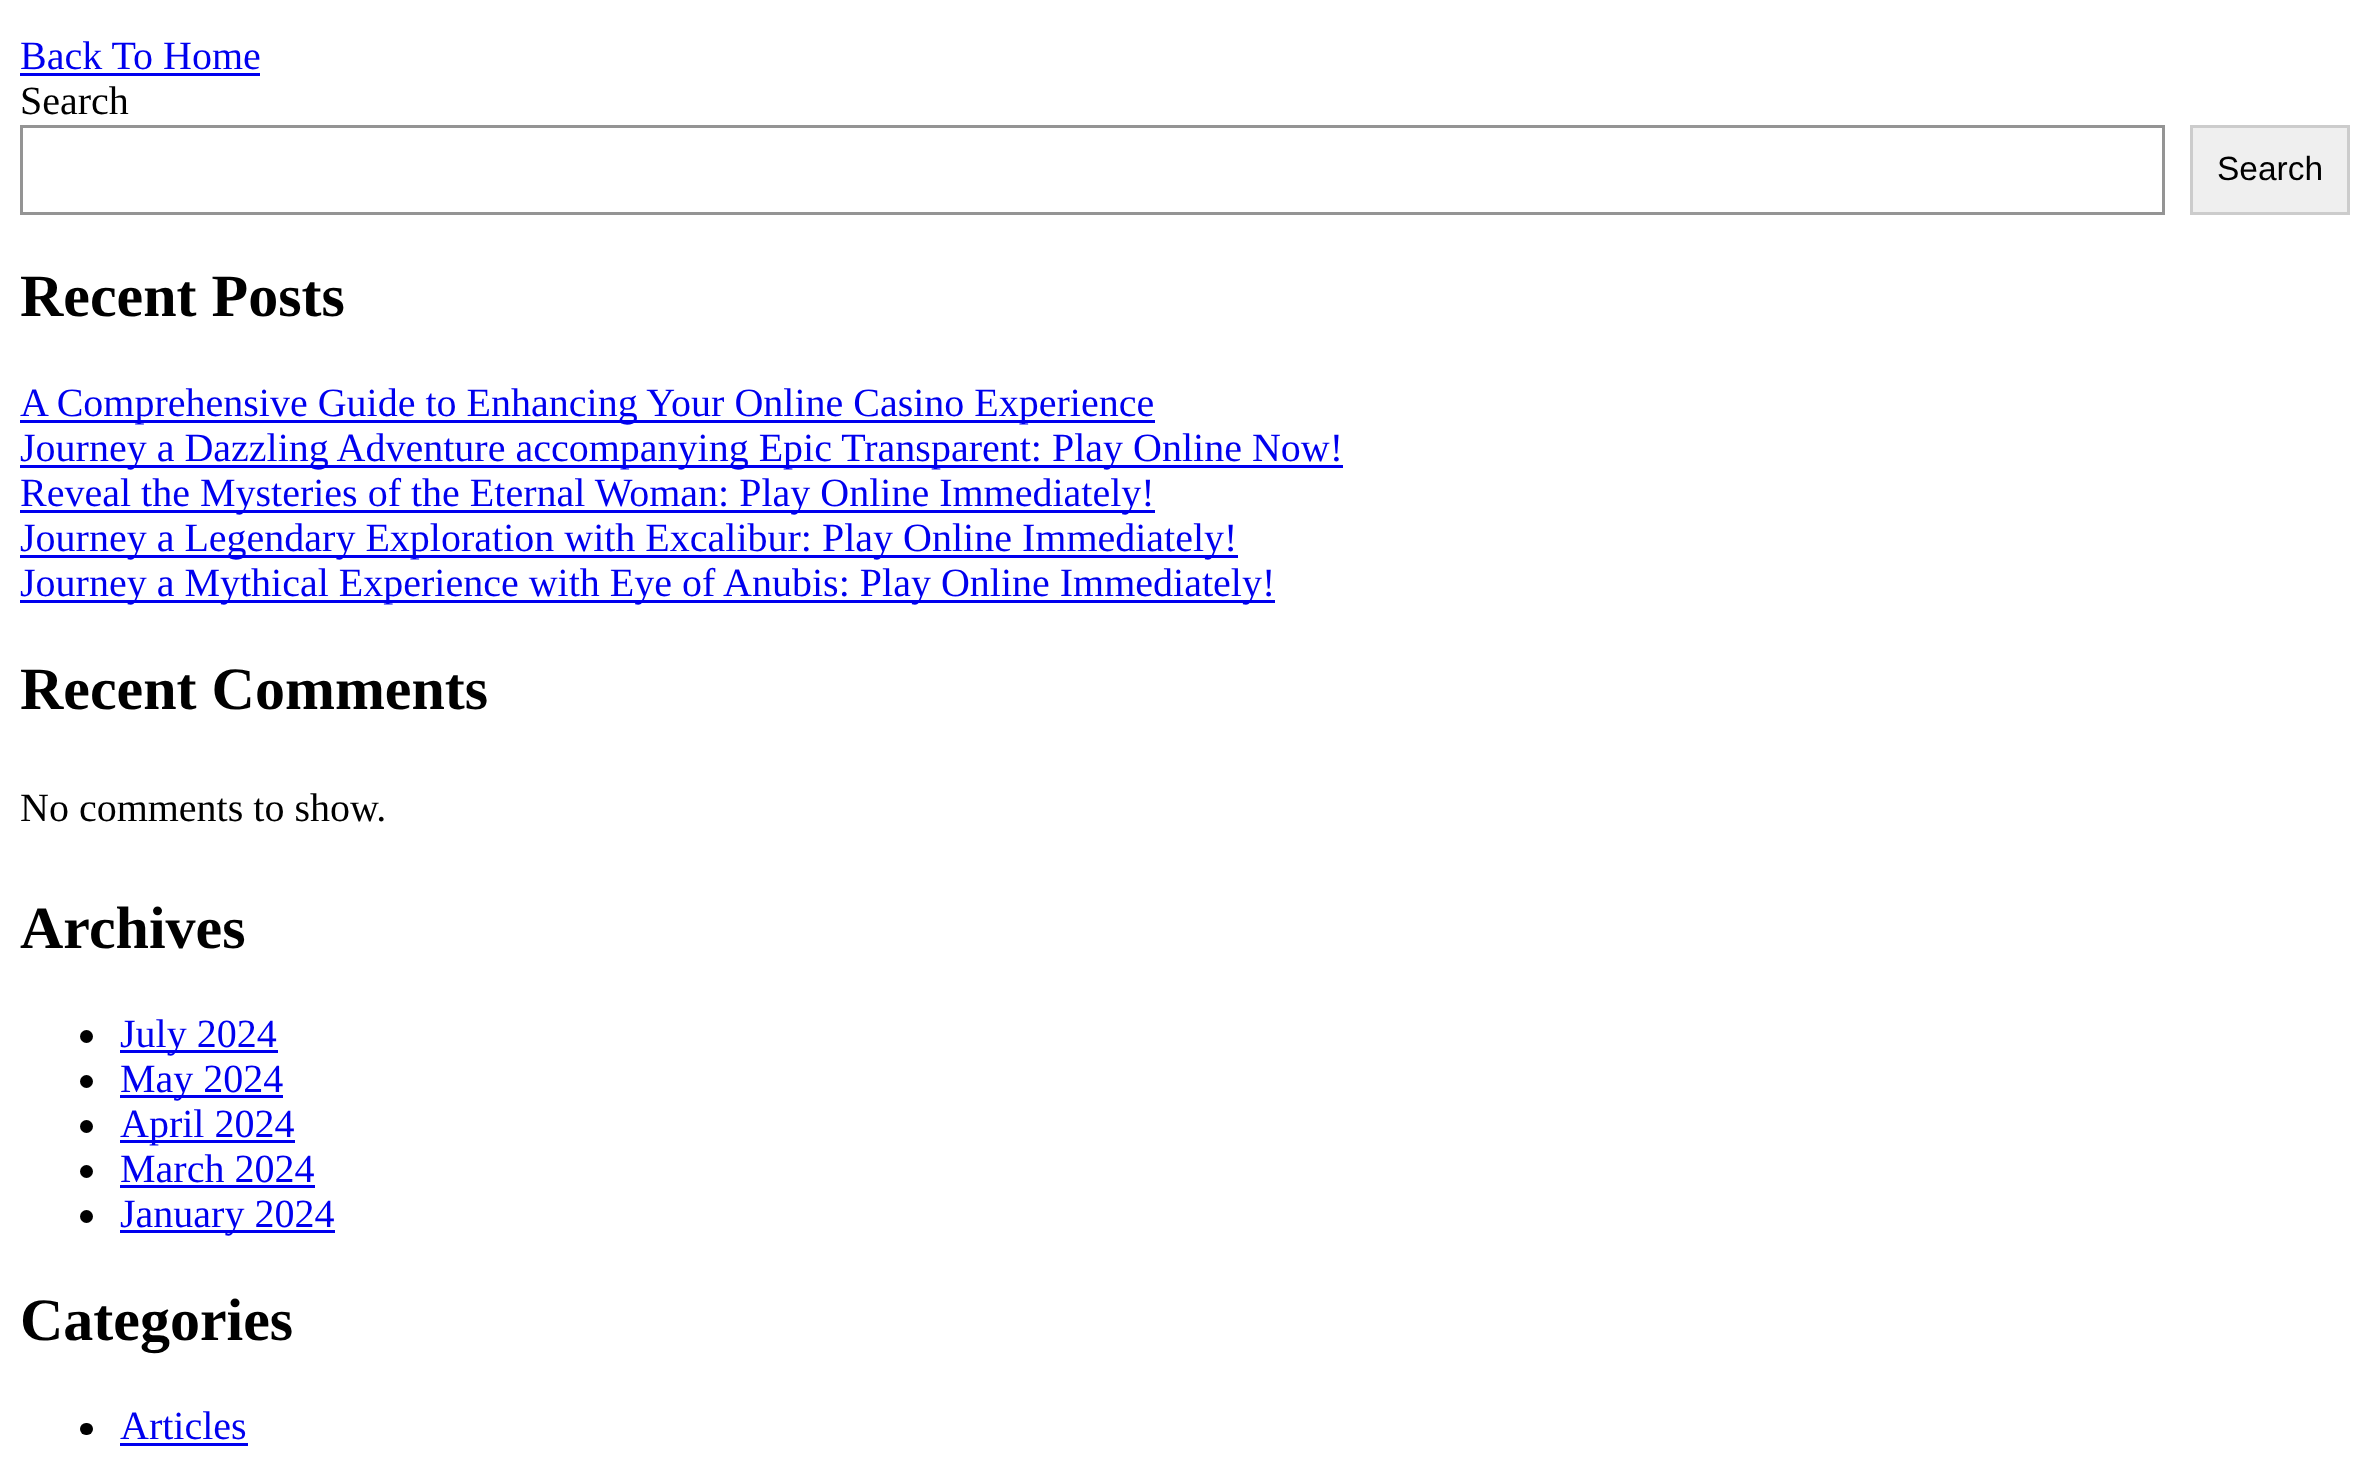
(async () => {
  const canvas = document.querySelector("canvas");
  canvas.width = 2370;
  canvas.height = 1478;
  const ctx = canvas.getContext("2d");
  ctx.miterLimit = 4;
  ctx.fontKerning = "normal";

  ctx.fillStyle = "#ffffff";
  ctx.fillRect(0, 0, 2370, 1478);
  ctx.fillStyle = "#0000ee";
  ctx.fillRect(20, 73, 240, 3);
  ctx.strokeStyle = "#949494";
  ctx.lineWidth = 3;
  ctx.strokeRect(21.5, 126.5, 2142, 87);
  ctx.fillStyle = "#efefef";
  ctx.beginPath();
  ctx.rect(2191.5, 126.5, 157, 87);
  ctx.fill();
  ctx.strokeStyle = "#cccccc";
  ctx.stroke();
  for (const [x, y, w, h, color] of [
    [20, 420, 1135, 3, "#0000ee"],
    [20, 465, 1323, 3, "#0000ee"],
    [20, 510, 1135, 3, "#0000ee"],
    [20, 555, 1218, 3, "#0000ee"],
    [20, 600, 1255, 3, "#0000ee"],
  ]) {
    ctx.fillStyle = color;
    ctx.fillRect(x, y, w, h);
  }
  ctx.fillStyle = "#000000";
  ctx.beginPath();
  ctx.arc(86.5, 1036.5, 6.5, 0, Math.PI * 2);
  ctx.fill();
  ctx.fillStyle = "#0000ee";
  ctx.fillRect(120, 1050, 158, 3);
  ctx.fillStyle = "#000000";
  ctx.beginPath();
  ctx.arc(86.5, 1081.5, 6.5, 0, Math.PI * 2);
  ctx.fill();
  ctx.fillStyle = "#0000ee";
  ctx.fillRect(120, 1095, 163, 3);
  ctx.fillStyle = "#000000";
  ctx.beginPath();
  ctx.arc(86.5, 1126.5, 6.5, 0, Math.PI * 2);
  ctx.fill();
  ctx.fillStyle = "#0000ee";
  ctx.fillRect(120, 1140, 175, 3);
  ctx.fillStyle = "#000000";
  ctx.beginPath();
  ctx.arc(86.5, 1171.5, 6.5, 0, Math.PI * 2);
  ctx.fill();
  ctx.fillStyle = "#0000ee";
  ctx.fillRect(120, 1185, 195, 3);
  ctx.fillStyle = "#000000";
  ctx.beginPath();
  ctx.arc(86.5, 1216.5, 6.5, 0, Math.PI * 2);
  ctx.fill();
  ctx.fillStyle = "#0000ee";
  ctx.fillRect(120, 1230, 215, 3);
  ctx.fillStyle = "#000000";
  ctx.beginPath();
  ctx.roundRect(80, 1423, 13, 12, 6);
  ctx.fill();
  ctx.fillStyle = "#0000ee";
  ctx.fillRect(120, 1443, 128, 3);
  ctx.font = "40px Liberation Serif";
  ctx.fillText("Back To Home", 20, 69);
  ctx.fillStyle = "#000000";
  ctx.fillText("Search", 20, 114);
  ctx.font = "33.5px Liberation Sans";
  ctx.fillText("Search", 2217, 180);
  ctx.font = "bold 60px Liberation Serif";
  ctx.fillText("Recent Posts", 20, 316);
  ctx.font = "40px Liberation Serif";
  ctx.fillStyle = "#0000ee";
  for (const [text, x, y] of [
    ["A Comprehensive Guide to Enhancing Your Online Casino Experience", 20, 416],
    ["Journey a Dazzling Adventure accompanying Epic Transparent: Play Online Now!", 20, 461],
    ["Reveal the Mysteries of the Eternal Woman: Play Online Immediately!", 20, 506],
    ["Journey a Legendary Exploration with Excalibur: Play Online Immediately!", 20, 551],
    ["Journey a Mythical Experience with Eye of Anubis: Play Online Immediately!", 20, 596],
  ]) {
    ctx.fillText(text, x, y);
  }
  ctx.font = "bold 60px Liberation Serif";
  ctx.fillStyle = "#000000";
  ctx.fillText("Recent Comments", 20, 709);
  ctx.font = "40px Liberation Serif";
  ctx.fillText("No comments to show.", 20, 821);
  ctx.font = "bold 60px Liberation Serif";
  ctx.fillText("Archives", 20, 948);
  ctx.font = "40px Liberation Serif";
  ctx.fillStyle = "#0000ee";
  for (const [text, x, y] of [
    ["July 2024", 120, 1047],
    ["May 2024", 120, 1092],
    ["April 2024", 120, 1137],
    ["March 2024", 120, 1182],
    ["January 2024", 120, 1227],
  ]) {
    ctx.fillText(text, x, y);
  }
  ctx.font = "bold 60px Liberation Serif";
  ctx.fillStyle = "#000000";
  ctx.fillText("Categories", 20, 1340);
  ctx.font = "40px Liberation Serif";
  ctx.fillStyle = "#0000ee";
  ctx.fillText("Articles", 120, 1439);
})();
